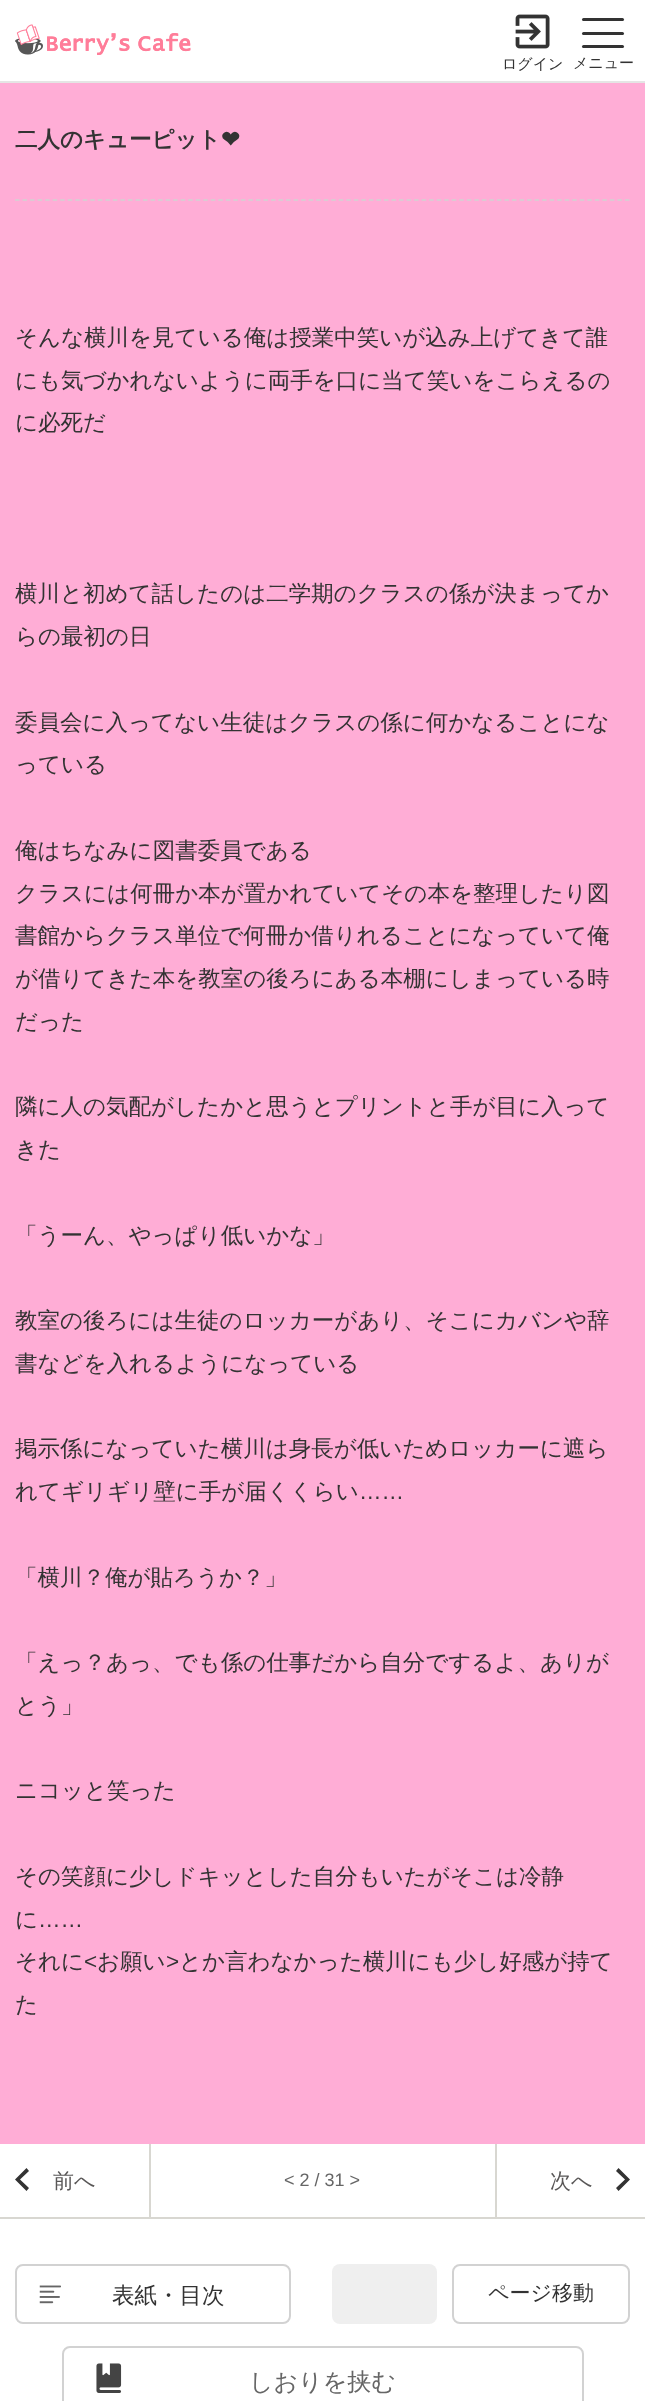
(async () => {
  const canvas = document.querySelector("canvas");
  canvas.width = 645;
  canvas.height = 2401;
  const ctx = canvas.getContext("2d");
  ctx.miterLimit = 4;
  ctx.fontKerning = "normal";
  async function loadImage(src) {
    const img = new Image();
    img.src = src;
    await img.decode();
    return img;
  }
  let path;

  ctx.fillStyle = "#ffadd6";
  ctx.fillRect(0, 0, 645, 2401);
  ctx.fillStyle = "#ffffff";
  ctx.fillRect(0, 0, 645, 81);
  ctx.fillStyle = "#e5e5e5";
  ctx.fillRect(0, 81, 645, 2);
  ctx.drawImage(await loadImage("img/1.png"), 15, 24, 176, 31);
  ctx.drawImage(await loadImage("img/2.png"), 515, 14, 35, 35);
  ctx.fillStyle = "#333333";
  ctx.beginPath();
  ctx.roundRect(582, 18, 42, 3, 1.5);
  ctx.fill();
  ctx.beginPath();
  ctx.roundRect(582, 32, 42, 3, 1.5);
  ctx.fill();
  ctx.beginPath();
  ctx.roundRect(582, 45, 42, 3, 1.5);
  ctx.fill();
  path = new Path2D("M15 200H630");
  ctx.strokeStyle = "#d2d2d2";
  ctx.lineWidth = 1.5;
  ctx.setLineDash([4.5, 3.03]);
  ctx.stroke(path);
  ctx.fillStyle = "#ffffff";
  ctx.fillRect(0, 2144, 645, 257);
  ctx.fillStyle = "#d8d7d1";
  ctx.fillRect(0, 2217, 645, 2);
  ctx.fillStyle = "#333333";
  path = new Path2D("M29 2188L20 2179.5L29 2171L26.5 2168L15 2179.5L26.5 2191Z");
  ctx.fill(path);
  ctx.fillStyle = "#d8d7d1";
  ctx.fillRect(495, 2144, 2, 73);
  ctx.fillRect(149, 2144, 2, 73);
  ctx.fillStyle = "#333333";
  path = new Path2D("M616 2188L625 2179.5L616 2171L618.5 2168L630 2179.5L618.5 2191Z");
  ctx.fill(path);
  ctx.drawImage(await loadImage("img/3.png"), 39, 2285, 22, 19);
  ctx.beginPath();
  ctx.roundRect(16, 2265, 274, 58, 7);
  ctx.lineWidth = 2;
  ctx.setLineDash([]);
  ctx.stroke();
  ctx.fillStyle = "#efefef";
  ctx.beginPath();
  ctx.roundRect(332, 2264, 105, 60, 8);
  ctx.fill();
  ctx.beginPath();
  ctx.roundRect(453, 2265, 176, 58, 7);
  ctx.stroke();
  ctx.drawImage(await loadImage("img/4.png"), 96, 2363, 26, 30);
  ctx.beginPath();
  ctx.roundRect(63, 2347, 520, 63, 7);
  ctx.stroke();
  ctx.font = "500 15px WenQuanYi Zen Hei";
  ctx.fillStyle = "#333333";
  ctx.fillText("ログイン", 502, 69);
  ctx.fillText("メニュー", 573, 68);
  ctx.font = "bold 22.5px WenQuanYi Zen Hei";
  ctx.fillText("二人のキューピット", 15, 147);
  ctx.font = "bold 22.5px DejaVu Sans";
  ctx.fillText("❤", 221, 147);
  ctx.font = "500 22.5px WenQuanYi Zen Hei";
  for (const [text, x, y] of [
    ["そんな横川を見ている俺は授業中笑いが込み上げてきて誰", 15, 345],
    ["にも気づかれないように両手を口に当て笑いをこらえるの", 15, 388],
    ["に必死だ", 15, 430],
    ["横川と初めて話したのは二学期のクラスの係が決まってか", 15, 601],
    ["らの最初の日", 15, 644],
    ["委員会に入ってない生徒はクラスの係に何かなることにな", 15, 730],
    ["っている", 15, 772],
    ["俺はちなみに図書委員である", 15, 858],
    ["クラスには何冊か本が置かれていてその本を整理したり図", 15, 901],
    ["書館からクラス単位で何冊か借りれることになっていて俺", 15, 943],
    ["が借りてきた本を教室の後ろにある本棚にしまっている時", 15, 986],
    ["だった", 15, 1029],
    ["隣に人の気配がしたかと思うとプリントと手が目に入って", 15, 1114],
    ["きた", 15, 1157],
    ["「うーん、やっぱり低いかな」", 15, 1243],
    ["教室の後ろには生徒のロッカーがあり、そこにカバンや辞", 15, 1328],
    ["書などを入れるようになっている", 15, 1371],
    ["掲示係になっていた横川は身長が低いためロッカーに遮ら", 15, 1456],
    ["れてギリギリ壁に手が届くくらい", 15, 1499],
  ]) {
    ctx.fillText(text, x, y);
  }
  ctx.font = "22.5px Liberation Sans";
  ctx.fillText("……", 359, 1499);
  ctx.font = "500 22.5px WenQuanYi Zen Hei";
  for (const [text, x, y] of [
    ["「横川？俺が貼ろうか？」", 15, 1585],
    ["「えっ？あっ、でも係の仕事だから自分でするよ、ありが", 15, 1670],
    ["とう」", 15, 1713],
    ["ニコッと笑った", 15, 1798],
    ["その笑顔に少しドキッとした自分もいたがそこは冷静", 15, 1884],
    ["に", 15, 1927],
  ]) {
    ctx.fillText(text, x, y);
  }
  ctx.font = "22.5px Liberation Sans";
  ctx.fillText("……", 38, 1927);
  ctx.font = "500 22.5px WenQuanYi Zen Hei";
  ctx.fillText("それに", 15, 1969);
  ctx.font = "22.5px Liberation Sans";
  ctx.fillText("<", 84, 1969);
  ctx.font = "500 22.5px WenQuanYi Zen Hei";
  ctx.fillText("お願い", 97, 1969);
  ctx.font = "22.5px Liberation Sans";
  ctx.fillText(">", 166, 1969);
  ctx.font = "500 22.5px WenQuanYi Zen Hei";
  ctx.fillText("とか言わなかった横川にも少し好感が持て", 179, 1969);
  ctx.fillText("た", 15, 2012);
  ctx.font = "500 21px WenQuanYi Zen Hei";
  ctx.fillStyle = "#595757";
  ctx.fillText("前へ", 53, 2188);
  ctx.font = "18px Liberation Sans";
  ctx.fillStyle = "#666666";
  ctx.fillText("< 2 / 31 >", 284, 2186);
  ctx.font = "500 21px WenQuanYi Zen Hei";
  ctx.fillStyle = "#595757";
  ctx.fillText("次へ", 550, 2188);
  ctx.font = "500 22.5px WenQuanYi Zen Hei";
  ctx.fillStyle = "#333333";
  ctx.fillText("表紙・目次", 112, 2303);
  ctx.font = "500 21px WenQuanYi Zen Hei";
  ctx.fillText("ページ移動", 488, 2300);
  ctx.font = "500 24px WenQuanYi Zen Hei";
  ctx.fillStyle = "#666666";
  ctx.fillText("しおりを挟む", 249, 2390);
})();
